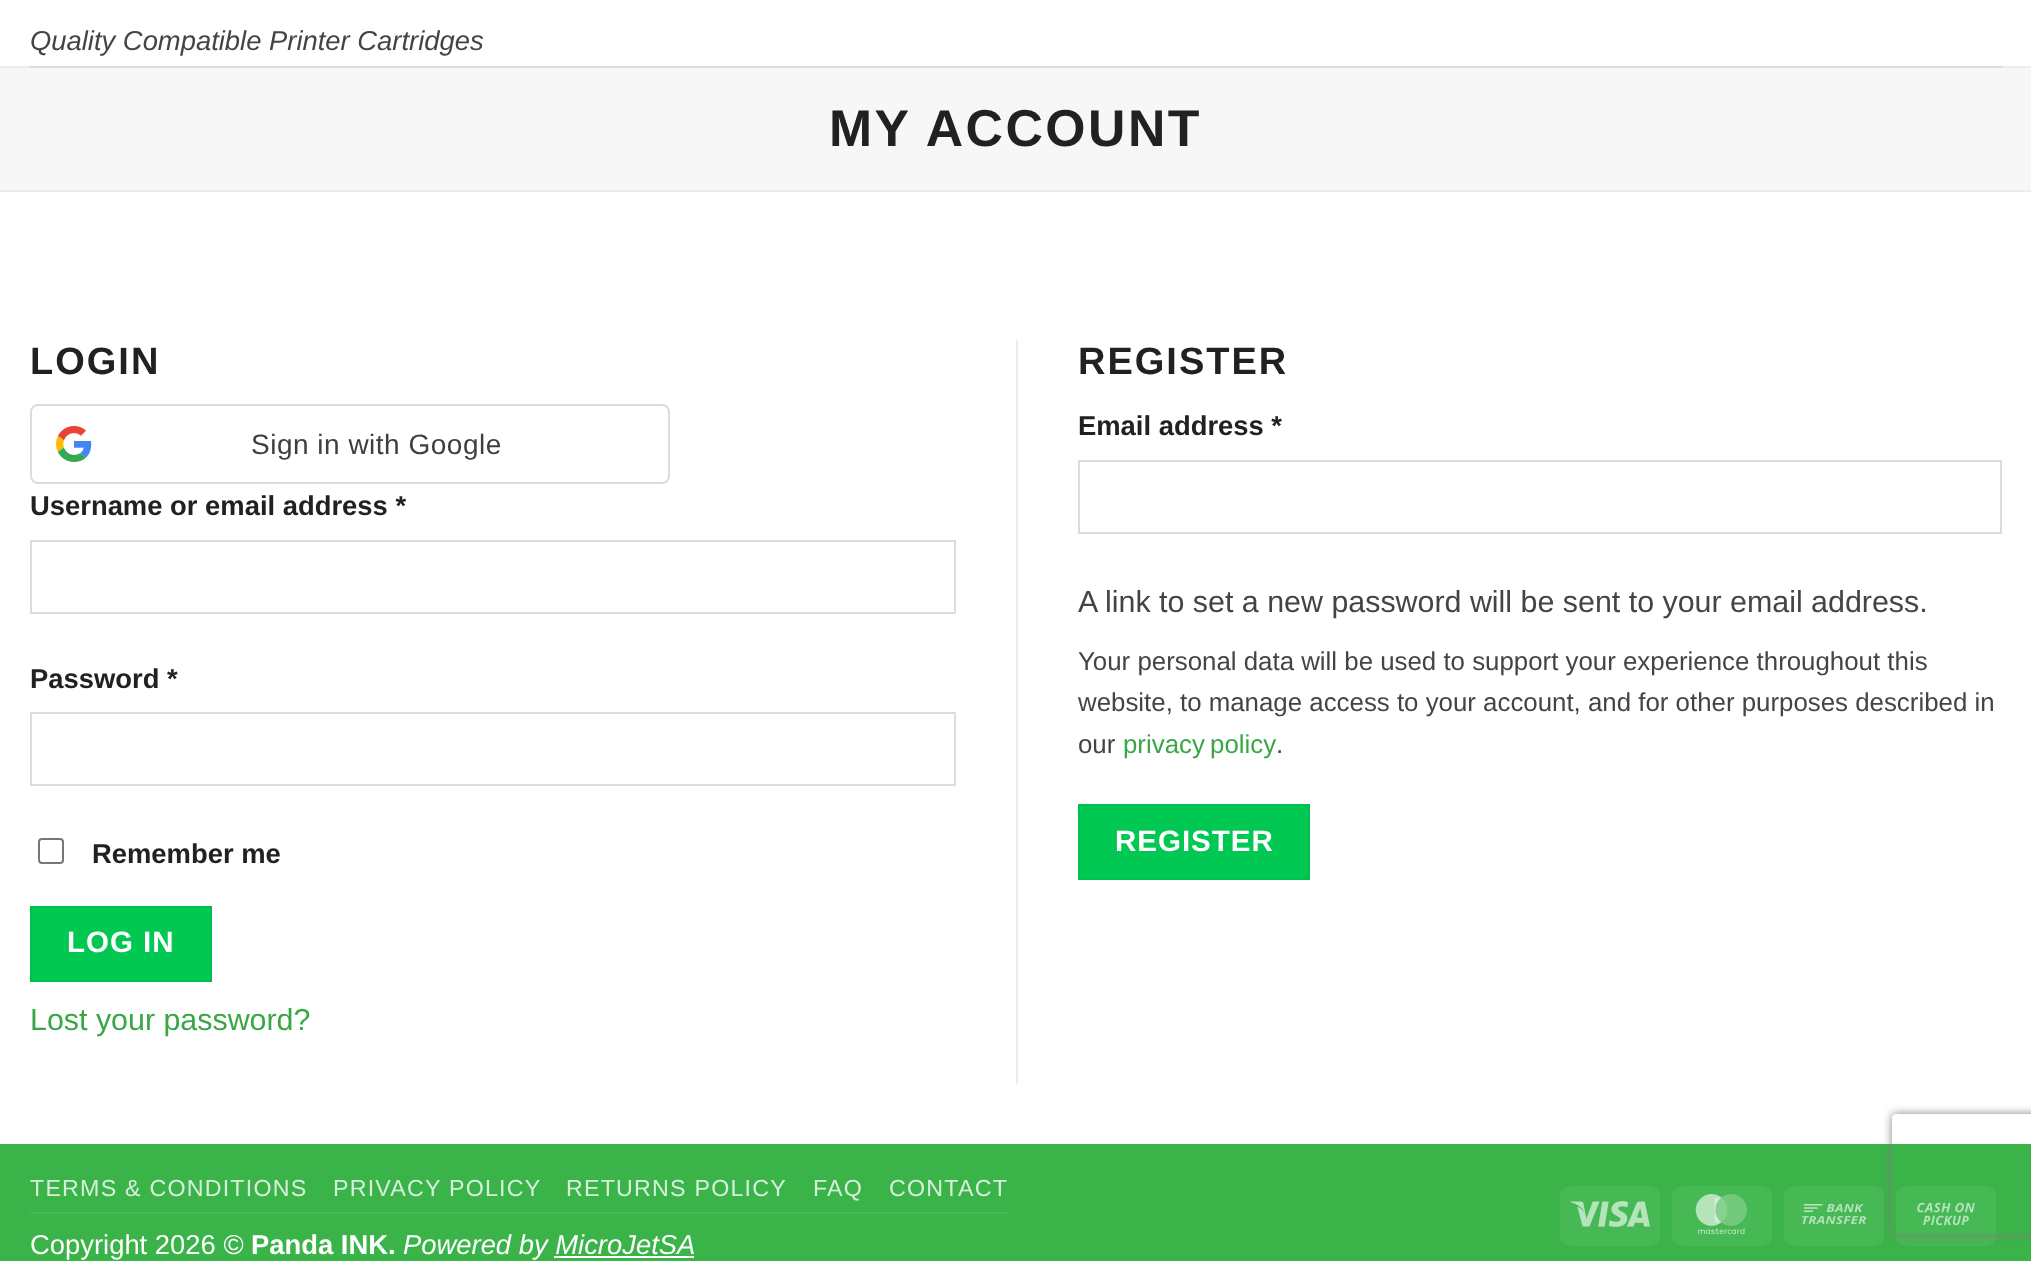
(async () => {
  const canvas = document.querySelector("canvas");
  canvas.width = 2031;
  canvas.height = 1261;
  const ctx = canvas.getContext("2d");
  ctx.miterLimit = 4;
  ctx.fontKerning = "normal";
  async function loadImage(src) {
    const img = new Image();
    img.src = src;
    await img.decode();
    return img;
  }
  let path;

  ctx.fillStyle = "#ffffff";
  ctx.fillRect(0, 0, 2031, 1261);
  for (const [x, y, w, h, color] of [
    [0, 66, 2031, 2, "#ececec"],
    [30, 66, 1972, 2, "#dbdbdb"],
    [0, 68, 2031, 122, "#f7f7f7"],
    [0, 190, 2031, 2, "#ececec"],
  ]) {
    ctx.fillStyle = color;
    ctx.fillRect(x, y, w, h);
  }
  ctx.beginPath();
  ctx.roundRect(31, 405, 638, 78, 7);
  ctx.strokeStyle = "#dadce0";
  ctx.lineWidth = 2;
  ctx.stroke();
  ctx.drawImage(await loadImage("img/1.png"), 56, 426, 36, 36);
  ctx.strokeStyle = "#dddddd";
  ctx.strokeRect(31, 541, 924, 72);
  ctx.strokeRect(31, 713, 924, 72);
  ctx.beginPath();
  ctx.roundRect(39, 839, 24, 24, 3);
  ctx.strokeStyle = "#767676";
  ctx.stroke();
  ctx.fillStyle = "#00c853";
  ctx.beginPath();
  ctx.rect(31, 907, 180, 74);
  ctx.fill();
  ctx.strokeStyle = "#00be4f";
  ctx.stroke();
  ctx.fillStyle = "#ececec";
  ctx.fillRect(1016, 340, 2, 744);
  ctx.strokeStyle = "#dddddd";
  ctx.strokeRect(1079, 461, 922, 72);
  ctx.fillStyle = "#00c853";
  ctx.beginPath();
  ctx.rect(1079, 805, 230, 74);
  ctx.fill();
  ctx.strokeStyle = "#00be4f";
  ctx.stroke();
  for (const [x, y, w, h, color] of [
    [0, 1144, 2031, 117, "#3ab349"],
    [30, 1212, 978, 2, "#47b855"],
    [554, 1256, 140, 2, "#ffffff"],
  ]) {
    ctx.fillStyle = color;
    ctx.fillRect(x, y, w, h);
  }
  ctx.fillStyle = "#46b854";
  ctx.beginPath();
  ctx.roundRect(1560, 1186, 100, 60, 10);
  ctx.fill();
  ctx.drawImage(await loadImage("img/2.png"), 1570, 1201, 80, 26);
  ctx.beginPath();
  ctx.roundRect(1672, 1186, 100, 60, 10);
  ctx.fill();
  ctx.drawImage(await loadImage("img/3.png"), 1695, 1194, 52, 40);
  ctx.beginPath();
  ctx.roundRect(1784, 1186, 100, 60, 10);
  ctx.fill();
  ctx.drawImage(await loadImage("img/4.png"), 1802, 1204, 64, 20);
  ctx.beginPath();
  ctx.roundRect(1896, 1186, 100, 60, 10);
  ctx.fill();
  ctx.drawImage(await loadImage("img/5.png"), 1917, 1202, 58, 24);
  ctx.save();
  path = new Path2D("M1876 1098H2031V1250H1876ZM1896 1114H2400C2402 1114 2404 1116 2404 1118V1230C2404 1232 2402 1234 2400 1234H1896C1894 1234 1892 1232 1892 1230V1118C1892 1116 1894 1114 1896 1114Z");
  ctx.clip(path, "evenodd");
  ctx.fillStyle = "#808080";
  ctx.filter = "blur(5px)";
  ctx.beginPath();
  ctx.roundRect(1892, 1114, 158, 120, 4);
  ctx.fill();
  ctx.filter = "none";
  ctx.restore();
  ctx.font = "italic 27.4px Liberation Sans";
  ctx.fillStyle = "#444444";
  ctx.fillText("Quality Compatible Printer Cartridges", 30, 50);
  ctx.letterSpacing = "2.5px";
  ctx.font = "bold 51.75px Liberation Sans";
  ctx.fillStyle = "#212121";
  ctx.fillText("MY ACCOUNT", 829, 146);
  ctx.letterSpacing = "2px";
  ctx.font = "bold 38px Liberation Sans";
  ctx.fillText("LOGIN", 30, 374);
  ctx.letterSpacing = "0.5px";
  ctx.font = "28px Liberation Sans";
  ctx.fillStyle = "#3c4043";
  ctx.fillText("Sign in with Google", 251, 454);
  ctx.letterSpacing = "0px";
  ctx.font = "bold 27.4px Liberation Sans";
  ctx.fillStyle = "#212121";
  for (const [text, x, y] of [
    ["Username or email address *", 30, 515],
    ["Password *", 30, 688],
    ["Remember me", 92, 863],
  ]) {
    ctx.fillText(text, x, y);
  }
  ctx.letterSpacing = "1px";
  ctx.font = "bold 29.5px Liberation Sans";
  ctx.fillStyle = "#ffffff";
  ctx.fillText("LOG IN", 67, 952);
  ctx.letterSpacing = "0px";
  ctx.font = "30.4px Liberation Sans";
  ctx.fillStyle = "#39a746";
  ctx.fillText("Lost your password?", 30, 1030);
  ctx.letterSpacing = "2px";
  ctx.font = "bold 38px Liberation Sans";
  ctx.fillStyle = "#212121";
  ctx.fillText("REGISTER", 1078, 374);
  ctx.letterSpacing = "0px";
  ctx.font = "bold 27.4px Liberation Sans";
  ctx.fillText("Email address *", 1078, 435);
  ctx.font = "30.4px Liberation Sans";
  ctx.fillStyle = "#444444";
  ctx.fillText("A link to set a new password will be sent to your email address.", 1078, 612);
  ctx.font = "25.85px Liberation Sans";
  for (const [text, x, y] of [
    ["Your personal data will be used to support your experience throughout this", 1078, 670],
    ["website, to manage access to your account, and for other purposes described in", 1078, 711],
    ["our", 1078, 753],
  ]) {
    ctx.fillText(text, x, y);
  }
  ctx.wordSpacing = "-2px";
  ctx.fillStyle = "#39a746";
  ctx.fillText("privacy policy", 1123, 753);
  ctx.wordSpacing = "0px";
  ctx.fillStyle = "#444444";
  ctx.fillText(".", 1276, 753);
  ctx.letterSpacing = "1px";
  ctx.font = "bold 29.5px Liberation Sans";
  ctx.fillStyle = "#ffffff";
  ctx.fillText("REGISTER", 1115, 851);
  ctx.letterSpacing = "1.2px";
  ctx.font = "23.25px Liberation Sans";
  ctx.fillStyle = "#d8f0db";
  for (const [text, x, y] of [
    ["TERMS & CONDITIONS", 30, 1196],
    ["PRIVACY POLICY", 333, 1196],
    ["RETURNS POLICY", 566, 1196],
    ["FAQ", 813, 1196],
    ["CONTACT", 889, 1196],
  ]) {
    ctx.fillText(text, x, y);
  }
  ctx.letterSpacing = "0px";
  ctx.font = "27.4px Liberation Sans";
  ctx.fillStyle = "#ffffff";
  ctx.fillText("Copyright 2026 ©", 30, 1254);
  ctx.font = "bold 27.4px Liberation Sans";
  ctx.fillText("Panda INK.", 251, 1254);
  ctx.font = "italic 27.4px Liberation Sans";
  ctx.fillText("Powered by MicroJetSA", 403, 1254);
})();
